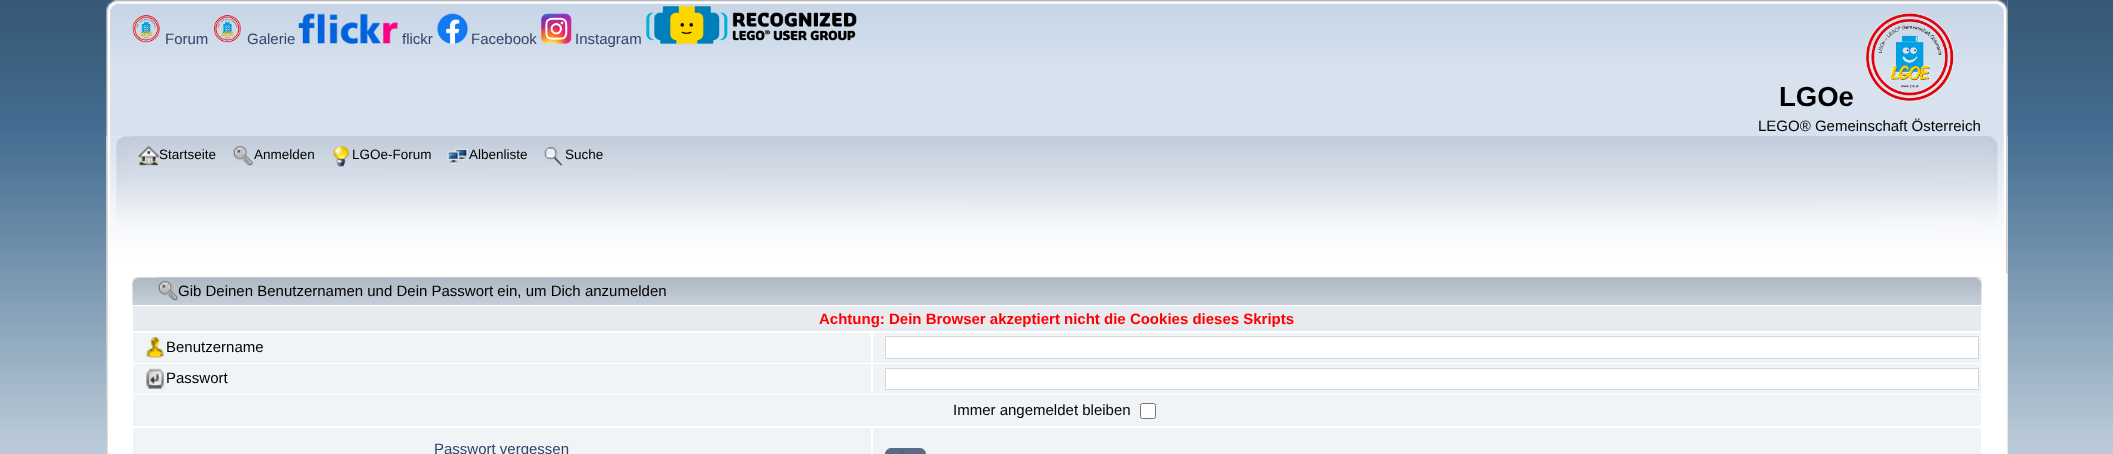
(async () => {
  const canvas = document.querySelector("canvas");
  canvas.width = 2113;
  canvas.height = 454;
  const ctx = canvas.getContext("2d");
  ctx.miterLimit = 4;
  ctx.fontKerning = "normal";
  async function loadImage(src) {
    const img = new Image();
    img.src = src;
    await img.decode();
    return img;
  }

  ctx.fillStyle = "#ffffff";
  ctx.fillRect(0, 0, 2113, 454);
  ctx.drawImage(await loadImage("img/1.png"), 0, 0, 2113, 454);
  ctx.drawImage(await loadImage("img/2.png"), 106, 0, 1902, 136);
  ctx.drawImage(await loadImage("img/3.png"), 131, 0, 1877, 136);
  ctx.drawImage(await loadImage("img/4.png"), 132, 15, 28, 28);
  ctx.drawImage(await loadImage("img/5.png"), 214, 15, 27, 28);
  ctx.drawImage(await loadImage("img/6.png"), 298, 13, 100, 31);
  ctx.drawImage(await loadImage("img/7.png"), 437, 13, 31, 31);
  ctx.drawImage(await loadImage("img/8.png"), 541, 13, 31, 31);
  ctx.drawImage(await loadImage("img/9.png"), 646, 6, 211, 38);
  ctx.drawImage(await loadImage("img/10.png"), 1865, 13, 89, 89);
  ctx.fillStyle = "#fefefe";
  ctx.fillRect(106, 136, 1902, 138);
  ctx.drawImage(await loadImage("img/11.png"), 106, 136, 1902, 138);
  ctx.drawImage(await loadImage("img/12.png"), 131, 136, 1877, 138);
  ctx.drawImage(await loadImage("img/13.png"), 138, 146, 21, 21);
  ctx.drawImage(await loadImage("img/14.png"), 233, 146, 20, 20);
  ctx.drawImage(await loadImage("img/15.png"), 333, 146, 16, 21);
  ctx.drawImage(await loadImage("img/16.png"), 447, 148, 21, 16);
  ctx.drawImage(await loadImage("img/17.png"), 543, 146, 20, 20);
  ctx.fillStyle = "#ffffff";
  ctx.fillRect(106, 274, 1902, 180);
  ctx.drawImage(await loadImage("img/18.png"), 106, 273, 1901, 181);
  ctx.drawImage(await loadImage("img/19.png"), 2006, 273, 2, 181);
  ctx.drawImage(await loadImage("img/20.png"), 132, 277, 1850, 28);
  ctx.drawImage(await loadImage("img/21.png"), 157, 277, 1825, 28);
  ctx.drawImage(await loadImage("img/22.png"), 158, 281, 20, 20);
  ctx.fillStyle = "#e7eaef";
  ctx.fillRect(133, 306, 1848, 25);
  ctx.fillStyle = "#f0f4f7";
  ctx.fillRect(133, 333, 738, 30);
  ctx.drawImage(await loadImage("img/23.png"), 146, 337, 18, 21);
  ctx.fillRect(873, 333, 1108, 30);
  ctx.fillStyle = "#ffffff";
  ctx.beginPath();
  ctx.rect(885.5, 336.5, 1093, 22);
  ctx.fill();
  ctx.strokeStyle = "#d1d7dc";
  ctx.stroke();
  ctx.fillStyle = "#f0f4f7";
  ctx.fillRect(133, 364, 738, 30);
  ctx.drawImage(await loadImage("img/24.png"), 146, 368, 18, 21);
  ctx.fillRect(873, 364, 1108, 30);
  ctx.fillStyle = "#ffffff";
  ctx.beginPath();
  ctx.rect(885.5, 368.5, 1093, 21);
  ctx.fill();
  ctx.stroke();
  ctx.fillStyle = "#f0f4f7";
  ctx.fillRect(133, 395, 1848, 31);
  ctx.fillStyle = "#ffffff";
  ctx.beginPath();
  ctx.roundRect(1140.5, 403.5, 15, 15, 2);
  ctx.fill();
  ctx.strokeStyle = "#767676";
  ctx.stroke();
  ctx.fillStyle = "#f0f4f7";
  ctx.fillRect(133, 428, 738, 26);
  ctx.fillRect(873, 428, 1108, 26);
  ctx.fillStyle = "#5a6c85";
  ctx.beginPath();
  ctx.roundRect(885.5, 448.5, 40, 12, 5.5);
  ctx.fill();
  ctx.strokeStyle = "#5a6c85";
  ctx.stroke();
  ctx.drawImage(await loadImage("img/25.png"), 900, 452, 5, 2);
  ctx.font = "15px Liberation Sans";
  ctx.fillStyle = "#334466";
  for (const [text, x, y] of [
    ["Forum", 165, 44],
    ["Galerie", 247, 44],
    ["flickr", 402, 44],
    ["Facebook", 471, 44],
    ["Instagram", 575, 44],
  ]) {
    ctx.fillText(text, x, y);
  }
  ctx.font = "bold 27.5px Liberation Sans";
  ctx.fillStyle = "#000000";
  ctx.fillText("LGOe", 1779, 106);
  ctx.font = "15px Liberation Sans";
  ctx.fillText("LEGO® Gemeinschaft Österreich", 1758, 131);
  ctx.font = "13.5px Liberation Sans";
  for (const [text, x, y] of [
    ["Startseite", 159, 159],
    ["Anmelden", 254, 159],
    ["LGOe-Forum", 352, 159],
    ["Albenliste", 469, 159],
    ["Suche", 565, 159],
  ]) {
    ctx.fillText(text, x, y);
  }
  ctx.font = "15px Liberation Sans";
  ctx.fillText("Gib Deinen Benutzernamen und Dein Passwort ein, um Dich anzumelden", 178, 296);
  ctx.font = "bold 15px Liberation Sans";
  ctx.fillStyle = "#ff0000";
  ctx.fillText("Achtung: Dein Browser akzeptiert nicht die Cookies dieses Skripts", 819, 324);
  ctx.font = "15px Liberation Sans";
  ctx.fillStyle = "#000000";
  for (const [text, x, y] of [
    ["Benutzername", 166, 352],
    ["Passwort", 166, 383],
    ["Immer angemeldet bleiben", 953, 415],
  ]) {
    ctx.fillText(text, x, y);
  }
  ctx.fillStyle = "#334466";
  ctx.fillText("Passwort vergessen", 434, 454);
})();
